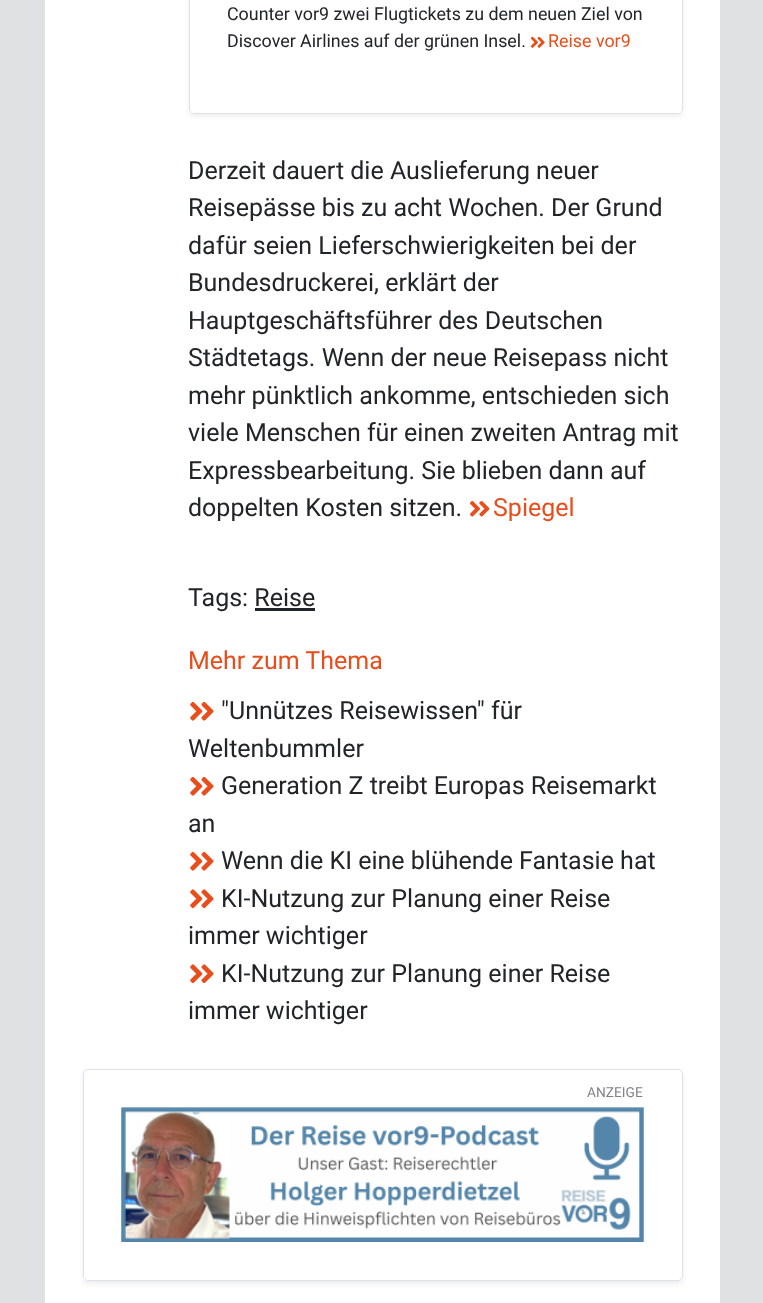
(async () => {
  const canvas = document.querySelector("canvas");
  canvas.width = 763;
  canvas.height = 1303;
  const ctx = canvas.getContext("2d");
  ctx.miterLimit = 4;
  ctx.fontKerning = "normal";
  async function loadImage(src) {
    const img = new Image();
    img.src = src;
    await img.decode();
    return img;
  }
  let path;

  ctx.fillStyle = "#e0e1e2";
  ctx.fillRect(0, 0, 763, 1303);
  ctx.fillStyle = "#ffffff";
  ctx.fillRect(45, 0, 675, 1303);
  ctx.save();
  path = new Path2D("M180 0H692V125H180ZM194-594H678C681-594 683-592 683-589V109C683 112 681 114 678 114H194C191 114 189 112 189 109V-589C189-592 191-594 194-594Z");
  ctx.clip(path, "evenodd");
  ctx.fillStyle = "rgba(0, 0, 0, 0.07)";
  ctx.filter = "blur(2.5px)";
  ctx.beginPath();
  ctx.roundRect(189, -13, 494, 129, 5);
  ctx.fill();
  ctx.filter = "none";
  ctx.restore();
  ctx.beginPath();
  ctx.roundRect(189.5, -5.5, 493, 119, 4.5);
  ctx.strokeStyle = "#dee2e6";
  ctx.stroke();
  ctx.drawImage(await loadImage("img/1.png"), 530, 36, 15, 12);
  ctx.drawImage(await loadImage("img/2.png"), 470, 500, 20, 17);
  ctx.fillStyle = "#212529";
  ctx.fillRect(255, 608, 60, 3);
  ctx.drawImage(await loadImage("img/3.png"), 190, 701, 24, 20);
  ctx.drawImage(await loadImage("img/3.png"), 190, 776, 24, 20);
  ctx.drawImage(await loadImage("img/3.png"), 190, 851, 24, 20);
  ctx.drawImage(await loadImage("img/4.png"), 190, 889, 24, 20);
  ctx.drawImage(await loadImage("img/4.png"), 190, 964, 24, 20);
  ctx.save();
  path = new Path2D("M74 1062H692V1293H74ZM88 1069H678C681 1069 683 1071 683 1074V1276C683 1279 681 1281 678 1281H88C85 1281 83 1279 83 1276V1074C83 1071 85 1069 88 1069Z");
  ctx.clip(path, "evenodd");
  ctx.fillStyle = "rgba(0, 0, 0, 0.07)";
  ctx.filter = "blur(2.5px)";
  ctx.beginPath();
  ctx.roundRect(83, 1071, 600, 213, 5);
  ctx.fill();
  ctx.filter = "none";
  ctx.restore();
  ctx.beginPath();
  ctx.roundRect(83.5, 1069.5, 599, 211, 4.5);
  ctx.stroke();
  ctx.drawImage(await loadImage("img/5.png"), 121, 1107, 523, 135);
  ctx.font = "17.85px Roboto";
  ctx.fillText("Counter vor9 zwei Flugtickets zu dem neuen Ziel von", 227, 20);
  ctx.fillText("Discover Airlines auf der grünen Insel.", 227, 47);
  ctx.fillStyle = "#e84e1b";
  ctx.fillText("Reise vor9", 548, 47);
  ctx.font = "25px Roboto";
  ctx.fillStyle = "#212529";
  for (const [text, x, y] of [
    ["Derzeit dauert die Auslieferung neuer", 188, 179],
    ["Reisepässe bis zu acht Wochen. Der Grund", 188, 216],
    ["dafür seien Lieferschwierigkeiten bei der", 188, 254],
    ["Bundesdruckerei, erklärt der", 188, 291],
    ["Hauptgeschäftsführer des Deutschen", 188, 329],
    ["Städtetags. Wenn der neue Reisepass nicht", 188, 366],
    ["mehr pünktlich ankomme, entschieden sich", 188, 404],
    ["viele Menschen für einen zweiten Antrag mit", 188, 441],
    ["Expressbearbeitung. Sie blieben dann auf", 188, 479],
    ["doppelten Kosten sitzen.", 188, 516],
  ]) {
    ctx.fillText(text, x, y);
  }
  ctx.fillStyle = "#e84e1b";
  ctx.fillText("Spiegel", 493, 516);
  ctx.fillStyle = "#212529";
  ctx.fillText("Tags: Reise", 188, 606);
  ctx.fillStyle = "#e84e1b";
  ctx.fillText("Mehr zum Thema", 188, 669);
  ctx.fillStyle = "#212529";
  for (const [text, x, y] of [
    ["\"Unnützes Reisewissen\" für", 221, 719],
    ["Weltenbummler", 188, 757],
    ["Generation Z treibt Europas Reisemarkt", 221, 794],
    ["an", 188, 832],
    ["Wenn die KI eine blühende Fantasie hat", 221, 869],
    ["KI-Nutzung zur Planung einer Reise", 221, 907],
    ["immer wichtiger", 188, 944],
    ["KI-Nutzung zur Planung einer Reise", 221, 982],
    ["immer wichtiger", 188, 1019],
  ]) {
    ctx.fillText(text, x, y);
  }
  ctx.font = "13.75px Roboto";
  ctx.fillStyle = "#808285";
  ctx.fillText("ANZEIGE", 587, 1097);
})();
